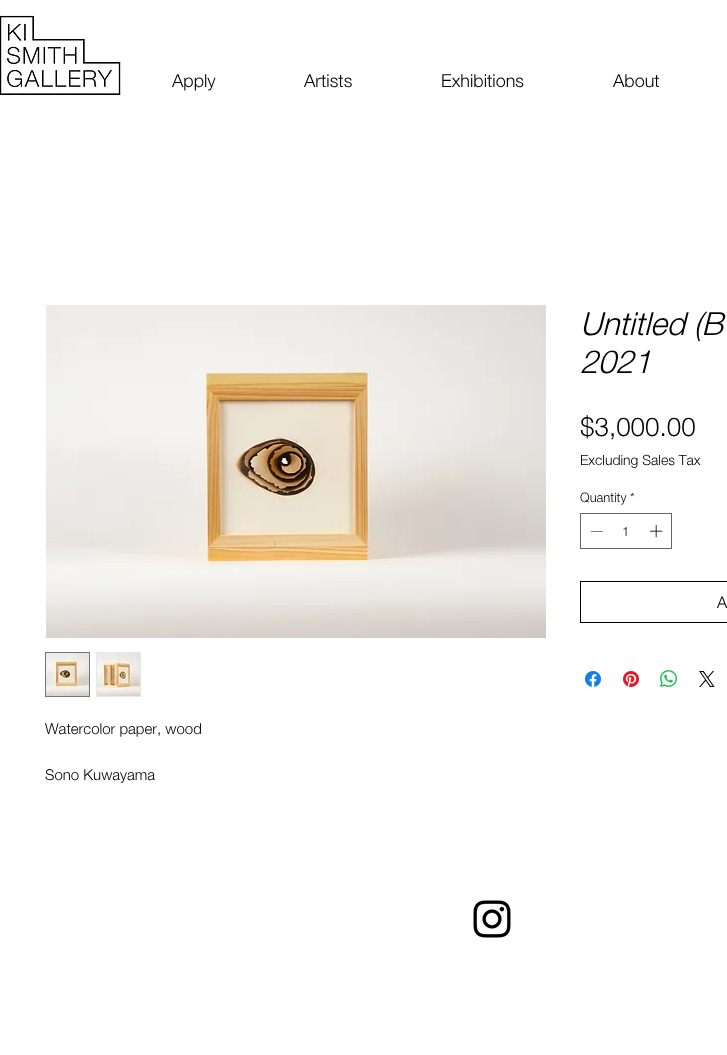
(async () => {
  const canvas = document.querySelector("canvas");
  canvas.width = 727;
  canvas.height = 1055;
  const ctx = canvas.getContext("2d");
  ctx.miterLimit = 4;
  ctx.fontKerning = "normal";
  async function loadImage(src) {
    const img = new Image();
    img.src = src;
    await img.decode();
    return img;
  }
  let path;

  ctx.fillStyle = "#ffffff";
  ctx.fillRect(0, 0, 727, 1055);
  ctx.drawImage(await loadImage("img/1.png"), 0, 14, 122, 84);
  ctx.strokeStyle = "#666666";
  ctx.strokeRect(580.5, 513.5, 91, 35);
  ctx.fillStyle = "#000000";
  path = new Path2D("M603 531V531.5H591V531Z");
  ctx.fill(path, "evenodd");
  ctx.drawImage(await loadImage("img/2.png"), 650, 525, 13, 13);
  ctx.strokeStyle = "#000000";
  ctx.strokeRect(580.5, 581.5, 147, 41);
  ctx.drawImage(await loadImage("img/3.png"), 585, 671, 16, 16);
  ctx.drawImage(await loadImage("img/4.png"), 623, 671, 16, 16);
  ctx.drawImage(await loadImage("img/5.png"), 660, 670, 17, 17);
  ctx.drawImage(await loadImage("img/6.png"), 699, 671, 16, 16);
  ctx.drawImage(await loadImage("img/7.png"), 46, 305, 500, 333);
  ctx.strokeStyle = "#767575";
  ctx.strokeRect(45.5, 652.5, 44, 44);
  ctx.drawImage(await loadImage("img/8.png"), 46, 653, 43, 43);
  ctx.fillStyle = "#e8e6e6";
  ctx.fillRect(96, 652, 45, 45);
  ctx.drawImage(await loadImage("img/9.png"), 97, 653, 43, 43);
  ctx.drawImage(await loadImage("img/10.png"), 473, 900, 38, 38);
  ctx.font = "300 18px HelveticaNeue";
  ctx.fillStyle = "#000000";
  for (const [text, x, y] of [
    ["Apply", 172, 87],
    ["Artists", 304, 87],
    ["Exhibitions", 441, 87],
    ["About", 613, 87],
  ]) {
    ctx.fillText(text, x, y);
  }
  ctx.font = "italic 300 32px HelveticaNeue";
  ctx.fillText("Untitled (B", 580, 335);
  ctx.fillText("2021", 580, 373);
  ctx.font = "300 26px HelveticaNeue";
  ctx.fillText("$3,000.00", 580, 436);
  ctx.font = "300 14px HelveticaNeue";
  ctx.fillText("Excluding Sales Tax", 580, 465);
  ctx.font = "300 13px HelveticaNeue";
  for (const [text, x, y] of [
    ["Quantity", 580, 502],
    ["*", 630, 502],
    ["1", 622, 536],
  ]) {
    ctx.fillText(text, x, y);
  }
  ctx.font = "300 16px HelveticaNeue";
  ctx.fillText("A", 717, 608);
  ctx.font = "300 15px HelveticaNeue";
  ctx.fillText("Watercolor paper, wood", 45, 734);
  ctx.fillText("Sono Kuwayama", 45, 780);
})();
